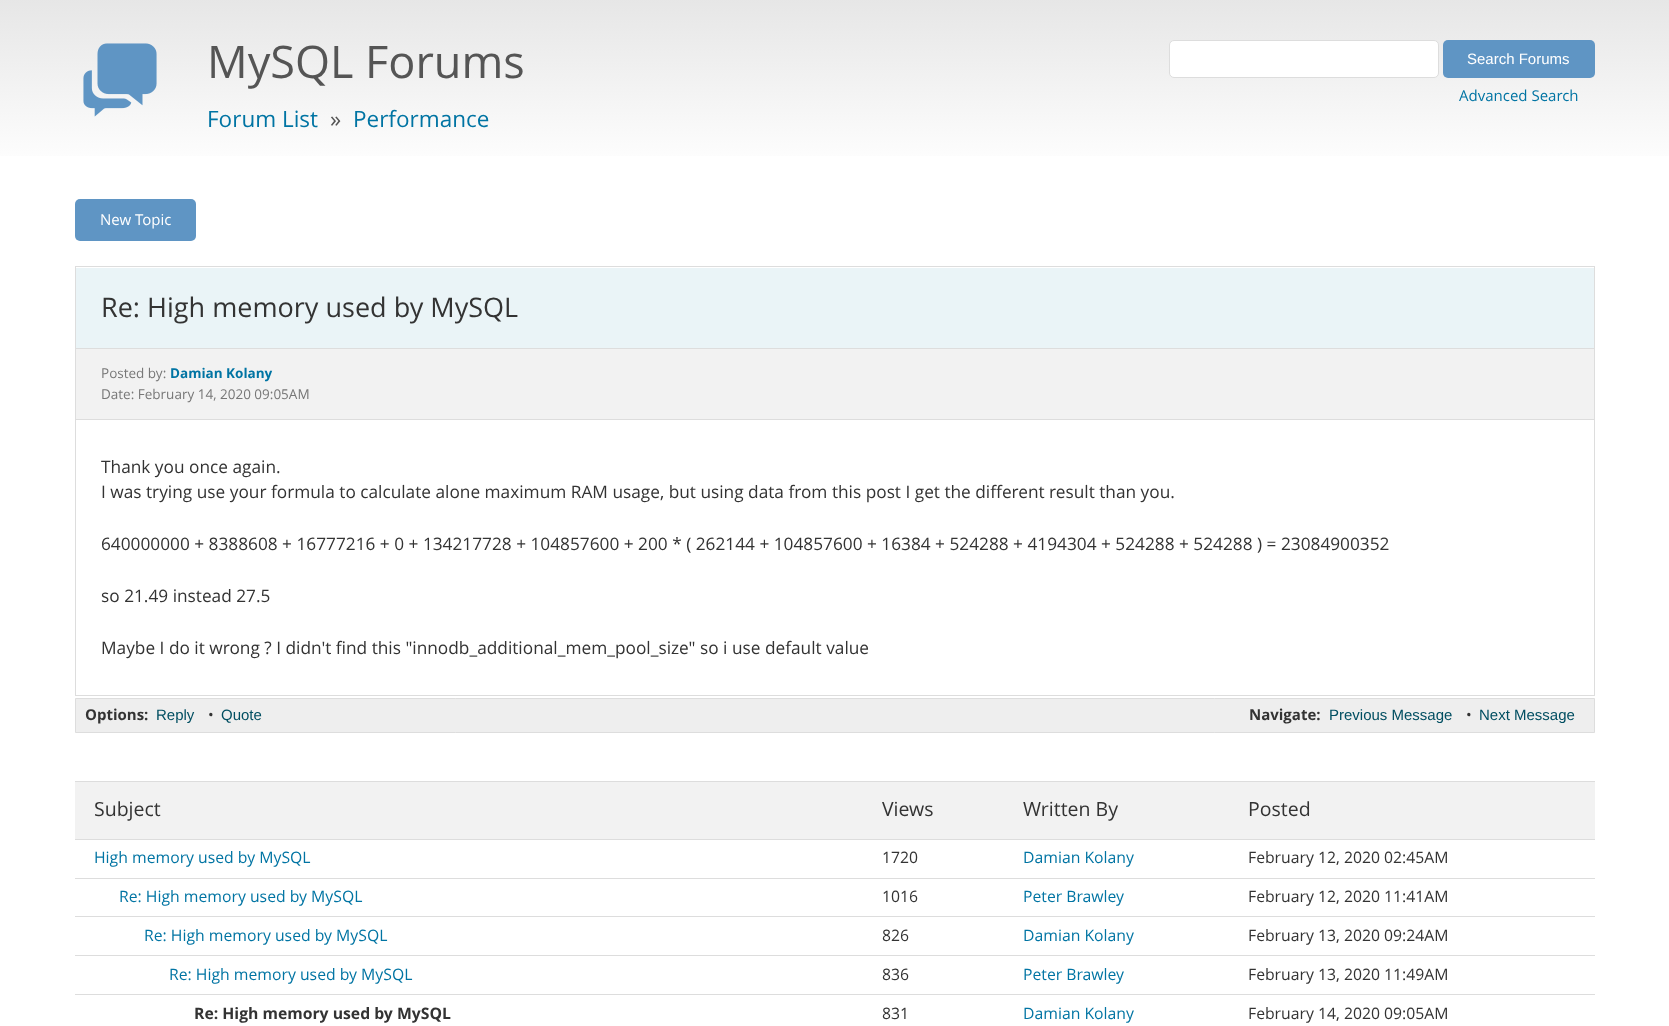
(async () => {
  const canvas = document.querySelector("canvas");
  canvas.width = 1669;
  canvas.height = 1026;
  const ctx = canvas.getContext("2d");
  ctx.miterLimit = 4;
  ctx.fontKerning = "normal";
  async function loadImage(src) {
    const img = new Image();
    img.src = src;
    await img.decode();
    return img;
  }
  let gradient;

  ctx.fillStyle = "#ffffff";
  ctx.fillRect(0, 0, 1669, 1026);
  gradient = ctx.createLinearGradient(835, -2.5, 835, 174);
  gradient.addColorStop(0, "#e6e6e6");
  gradient.addColorStop(1, "#ffffff");
  ctx.fillStyle = gradient;
  ctx.fillRect(0, 0, 1669, 156);
  ctx.drawImage(await loadImage("img/1.png"), 83, 43, 74, 74);
  ctx.fillStyle = "#ffffff";
  ctx.beginPath();
  ctx.roundRect(1169.5, 40.5, 269, 37, 4.5);
  ctx.fill();
  ctx.strokeStyle = "#dddddd";
  ctx.stroke();
  ctx.fillStyle = "#5f95c4";
  ctx.beginPath();
  ctx.roundRect(1443, 40, 152, 38, 5);
  ctx.fill();
  ctx.beginPath();
  ctx.roundRect(75, 199, 121, 42, 5);
  ctx.fill();
  ctx.strokeRect(75.5, 266.5, 1519, 429);
  for (const [x, y, w, h, color] of [
    [76, 268, 1518, 80, "#eaf4f7"],
    [76, 349, 1518, 70, "#f2f2f2"],
    [76, 348, 1518, 1, "#dddddd"],
    [76, 419, 1518, 1, "#dddddd"],
  ]) {
    ctx.fillStyle = color;
    ctx.fillRect(x, y, w, h);
  }
  ctx.fillStyle = "#eeeeee";
  ctx.beginPath();
  ctx.rect(75.5, 698.5, 1519, 34);
  ctx.fill();
  ctx.stroke();
  for (const [x, y, w, h, color] of [
    [75, 782, 1520, 57, "#f2f2f2"],
    [75, 781, 1520, 1, "#dddddd"],
    [75, 839, 1520, 1, "#dddddd"],
    [75, 878, 1520, 1, "#dddddd"],
    [75, 916, 1520, 1, "#dddddd"],
    [75, 955, 1520, 1, "#dddddd"],
    [75, 994, 1520, 1, "#dddddd"],
  ]) {
    ctx.fillStyle = color;
    ctx.fillRect(x, y, w, h);
  }
  ctx.font = "45px Open Sans";
  ctx.fillStyle = "#555555";
  ctx.fillText("MySQL Forums", 207, 78);
  ctx.font = "22.5px Open Sans";
  ctx.fillStyle = "#0074a3";
  ctx.fillText("Forum List", 207, 127);
  ctx.fillStyle = "#555555";
  ctx.fillText("»", 330, 127);
  ctx.fillStyle = "#0074a3";
  ctx.fillText("Performance", 353, 127);
  ctx.font = "15px Liberation Sans";
  ctx.fillStyle = "#ffffff";
  ctx.fillText("Search Forums", 1467, 64);
  ctx.font = "15px Open Sans";
  ctx.fillStyle = "#0074a3";
  ctx.fillText("Advanced Search", 1459, 101);
  ctx.fillStyle = "#ffffff";
  ctx.fillText("New Topic", 100, 225);
  ctx.font = "27px Open Sans";
  ctx.fillStyle = "#333333";
  ctx.fillText("Re: High memory used by MySQL", 101, 317);
  ctx.font = "13.5px Open Sans";
  ctx.fillStyle = "#777777";
  ctx.fillText("Posted by:", 101, 378);
  ctx.font = "bold 13.5px Open Sans";
  ctx.fillStyle = "#0074a3";
  ctx.fillText("Damian Kolany", 170, 378);
  ctx.font = "13.5px Open Sans";
  ctx.fillStyle = "#777777";
  ctx.fillText("Date: February 14, 2020 09:05AM", 101, 399);
  ctx.font = "17.25px Open Sans";
  ctx.fillStyle = "#333333";
  for (const [text, x, y] of [
    ["Thank you once again.", 101, 473],
    ["I was trying use your formula to calculate alone maximum RAM usage, but using data from this post I get the different result than you.", 101, 498],
    ["640000000 + 8388608 + 16777216 + 0 + 134217728 + 104857600 + 200 * ( 262144 + 104857600 + 16384 + 524288 + 4194304 + 524288 + 524288 ) = 23084900352", 101, 550],
    ["so 21.49 instead 27.5", 101, 602],
    ["Maybe I do it wrong ? I didn't find this \"innodb_additional_mem_pool_size\" so i use default value", 101, 654],
  ]) {
    ctx.fillText(text, x, y);
  }
  ctx.font = "bold 15px Open Sans";
  ctx.fillText("Options:", 85, 720);
  ctx.font = "15px Liberation Sans";
  ctx.fillStyle = "#004e61";
  ctx.fillText("Reply", 156, 720);
  ctx.font = "15px Open Sans";
  ctx.fillStyle = "#333333";
  ctx.fillText("•", 208, 720);
  ctx.font = "15px Liberation Sans";
  ctx.fillStyle = "#004e61";
  ctx.fillText("Quote", 221, 720);
  ctx.font = "bold 15px Open Sans";
  ctx.fillStyle = "#333333";
  ctx.fillText("Navigate:", 1249, 720);
  ctx.font = "15px Liberation Sans";
  ctx.fillStyle = "#004e61";
  ctx.fillText("Previous Message", 1329, 720);
  ctx.font = "15px Open Sans";
  ctx.fillStyle = "#333333";
  ctx.fillText("•", 1466, 720);
  ctx.font = "15px Liberation Sans";
  ctx.fillStyle = "#004e61";
  ctx.fillText("Next Message", 1479, 720);
  ctx.font = "19.5px Open Sans";
  ctx.fillStyle = "#333333";
  for (const [text, x, y] of [
    ["Subject", 94, 816],
    ["Views", 882, 816],
    ["Written By", 1023, 816],
    ["Posted", 1248, 816],
  ]) {
    ctx.fillText(text, x, y);
  }
  ctx.font = "15.75px Open Sans";
  ctx.fillStyle = "#0074a3";
  ctx.fillText("High memory used by MySQL", 94, 863);
  ctx.fillStyle = "#333333";
  ctx.fillText("1720", 882, 863);
  ctx.fillStyle = "#0074a3";
  ctx.fillText("Damian Kolany", 1023, 863);
  ctx.fillStyle = "#333333";
  ctx.fillText("February 12, 2020 02:45AM", 1248, 863);
  ctx.fillStyle = "#0074a3";
  ctx.fillText("Re: High memory used by MySQL", 119, 902);
  ctx.fillStyle = "#333333";
  ctx.fillText("1016", 882, 902);
  ctx.fillStyle = "#0074a3";
  ctx.fillText("Peter Brawley", 1023, 902);
  ctx.fillStyle = "#333333";
  ctx.fillText("February 12, 2020 11:41AM", 1248, 902);
  ctx.fillStyle = "#0074a3";
  ctx.fillText("Re: High memory used by MySQL", 144, 941);
  ctx.fillStyle = "#333333";
  ctx.fillText("826", 882, 941);
  ctx.fillStyle = "#0074a3";
  ctx.fillText("Damian Kolany", 1023, 941);
  ctx.fillStyle = "#333333";
  ctx.fillText("February 13, 2020 09:24AM", 1248, 941);
  ctx.fillStyle = "#0074a3";
  ctx.fillText("Re: High memory used by MySQL", 169, 980);
  ctx.fillStyle = "#333333";
  ctx.fillText("836", 882, 980);
  ctx.fillStyle = "#0074a3";
  ctx.fillText("Peter Brawley", 1023, 980);
  ctx.fillStyle = "#333333";
  ctx.fillText("February 13, 2020 11:49AM", 1248, 980);
  ctx.font = "bold 15.75px Open Sans";
  ctx.fillText("Re: High memory used by MySQL", 194, 1019);
  ctx.font = "15.75px Open Sans";
  ctx.fillText("831", 882, 1019);
  ctx.fillStyle = "#0074a3";
  ctx.fillText("Damian Kolany", 1023, 1019);
  ctx.fillStyle = "#333333";
  ctx.fillText("February 14, 2020 09:05AM", 1248, 1019);
})();
